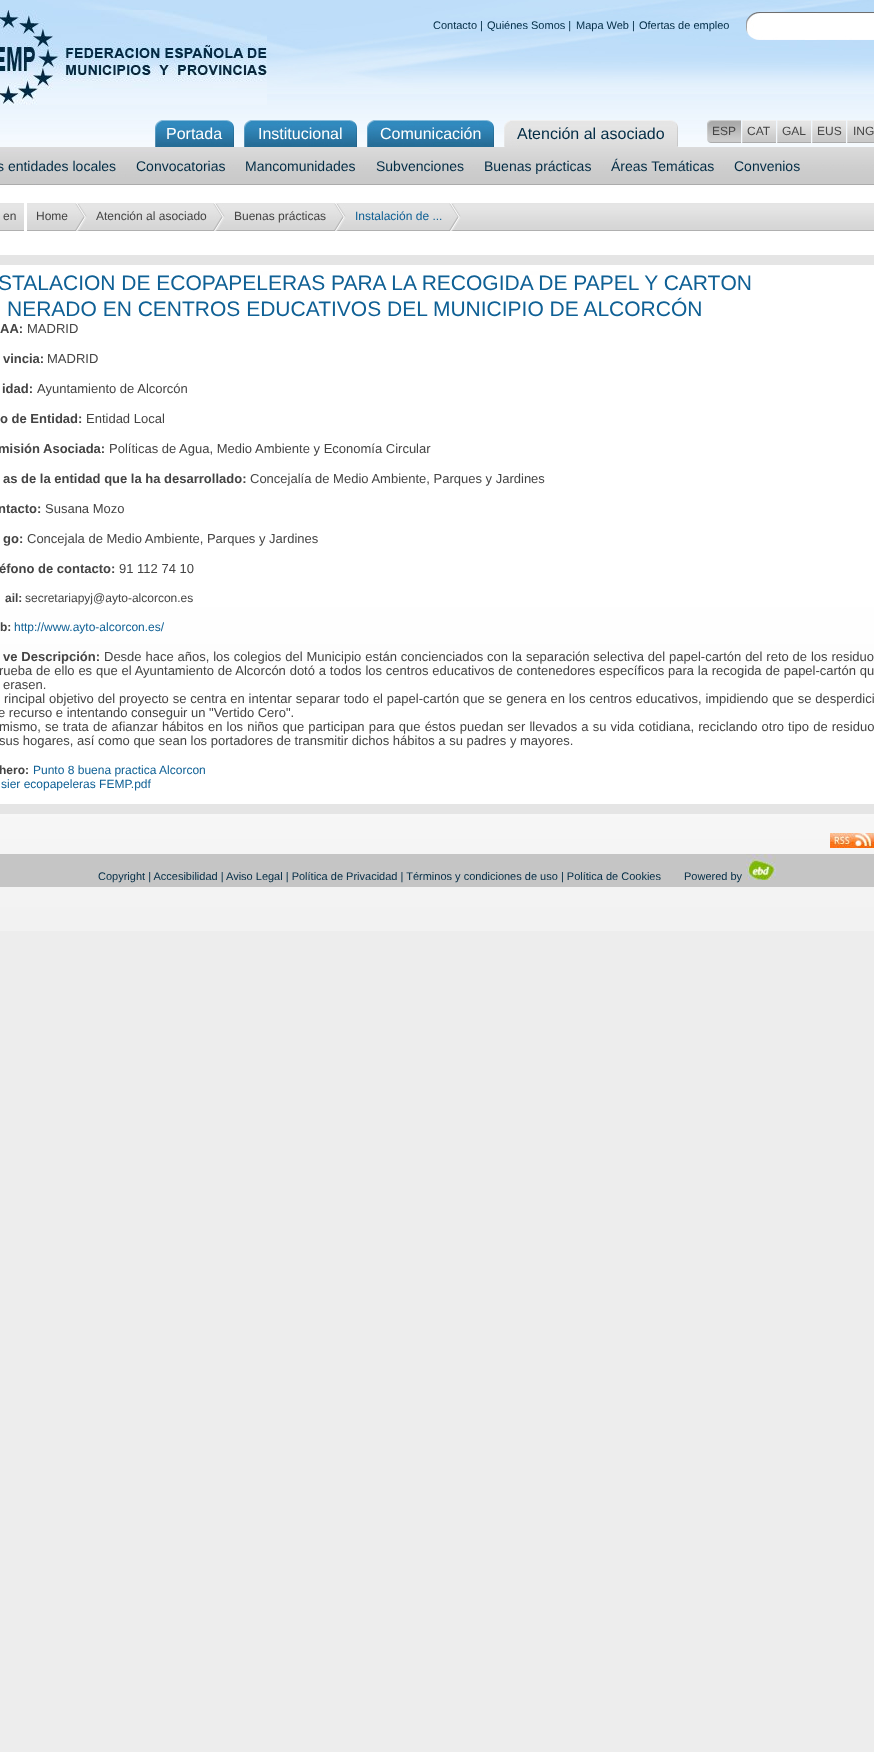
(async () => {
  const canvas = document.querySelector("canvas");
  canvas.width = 874;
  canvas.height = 1752;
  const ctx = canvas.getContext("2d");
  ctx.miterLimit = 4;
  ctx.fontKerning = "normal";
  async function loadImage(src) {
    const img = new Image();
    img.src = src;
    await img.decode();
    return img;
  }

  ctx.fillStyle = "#ededed";
  ctx.fillRect(0, 0, 874, 1752);
  ctx.drawImage(await loadImage("img/1.png"), 0, 94, 874, 837);
  ctx.drawImage(await loadImage("img/2.png"), 0, 0, 874, 94);
  ctx.drawImage(await loadImage("img/3.png"), 0, 10, 267, 95);
  ctx.drawImage(await loadImage("img/4.png"), 746, 12, 128, 28);
  ctx.drawImage(await loadImage("img/5.png"), 707, 120, 34, 23);
  ctx.drawImage(await loadImage("img/6.png"), 742, 120, 34, 23);
  ctx.drawImage(await loadImage("img/6.png"), 777, 120, 34, 23);
  ctx.drawImage(await loadImage("img/6.png"), 812, 120, 34, 23);
  ctx.drawImage(await loadImage("img/7.png"), 847, 120, 27, 23);
  ctx.drawImage(await loadImage("img/8.png"), 504, 120, 174, 27);
  ctx.drawImage(await loadImage("img/9.png"), 0, 147, 874, 38);
  ctx.drawImage(await loadImage("img/10.png"), 155, 120, 79, 27);
  ctx.drawImage(await loadImage("img/11.png"), 244, 120, 113, 27);
  ctx.drawImage(await loadImage("img/12.png"), 367, 120, 127, 27);
  ctx.drawImage(await loadImage("img/13.png"), 0, 203, 874, 28);
  ctx.fillStyle = "#ffffff";
  ctx.fillRect(24, 203, 3, 28);
  ctx.drawImage(await loadImage("img/14.png"), 75, 203, 12, 28);
  ctx.drawImage(await loadImage("img/14.png"), 213, 203, 12, 28);
  ctx.drawImage(await loadImage("img/14.png"), 334, 203, 12, 28);
  ctx.drawImage(await loadImage("img/14.png"), 449, 203, 12, 28);
  for (const [x, y, w, h, color] of [
    [0, 255, 874, 10, "#e5e5e5"],
    [0, 675, 874, 129, "#ffffff"],
    [0, 804, 874, 10, "#e5e5e5"],
    [0, 854, 874, 33, "#c5c5c5"],
  ]) {
    ctx.fillStyle = color;
    ctx.fillRect(x, y, w, h);
  }
  ctx.drawImage(await loadImage("img/15.png"), 830, 833, 44, 15);
  ctx.drawImage(await loadImage("img/16.png"), 746, 854, 30, 26);
  ctx.font = "11px Liberation Sans";
  ctx.fillStyle = "#012b44";
  for (const [text, x, y] of [
    ["Contacto |", 433, 29],
    ["Quiénes Somos |", 487, 29],
    ["Mapa Web |", 576, 29],
    ["Ofertas de empleo", 639, 29],
  ]) {
    ctx.fillText(text, x, y);
  }
  ctx.font = "12px Liberation Sans";
  ctx.fillStyle = "#444444";
  for (const [text, x, y] of [
    ["ESP", 712, 135],
    ["CAT", 747, 135],
    ["GAL", 782, 135],
    ["EUS", 817, 135],
    ["ING", 853, 135],
  ]) {
    ctx.fillText(text, x, y);
  }
  ctx.font = "16px Liberation Sans";
  ctx.fillStyle = "#012b44";
  ctx.fillText("Atención al asociado", 517, 139);
  ctx.font = "14px Liberation Sans";
  for (const [text, x, y] of [
    ["s entidades locales", -3, 171],
    ["Convocatorias", 136, 171],
    ["Mancomunidades", 245, 171],
    ["Subvenciones", 376, 171],
    ["Buenas prácticas", 484, 171],
    ["Áreas Temáticas", 611, 171],
    ["Convenios", 734, 171],
  ]) {
    ctx.fillText(text, x, y);
  }
  ctx.font = "16px Liberation Sans";
  ctx.fillStyle = "#ffffff";
  for (const [text, x, y] of [
    ["Portada", 166, 139],
    ["Institucional", 258, 139],
    ["Comunicación", 380, 139],
  ]) {
    ctx.fillText(text, x, y);
  }
  ctx.font = "12px Liberation Sans";
  ctx.fillStyle = "#444444";
  for (const [text, x, y] of [
    ["en", 3, 220],
    ["Home", 36, 220],
    ["Atención al asociado", 96, 220],
    ["Buenas prácticas", 234, 220],
  ]) {
    ctx.fillText(text, x, y);
  }
  ctx.fillStyle = "#0f6095";
  ctx.fillText("Instalación de ...", 355, 220);
  ctx.font = "21px Liberation Sans";
  ctx.fillText("STALACIÓN DE ECOPAPELERAS PARA LA RECOGIDA DE PAPEL Y CARTÓN", -2, 290);
  ctx.fillText("NERADO EN CENTROS EDUCATIVOS DEL MUNICIPIO DE ALCORCÓN", 7, 316);
  ctx.font = "bold 13px Liberation Sans";
  ctx.fillStyle = "#444444";
  ctx.fillText("AA:", 0, 333);
  ctx.font = "13px Liberation Sans";
  ctx.fillText("MADRID", 27, 333);
  ctx.font = "bold 13px Liberation Sans";
  ctx.fillText("vincia:", 3, 363);
  ctx.font = "13px Liberation Sans";
  ctx.fillText("MADRID", 47, 363);
  ctx.font = "bold 13px Liberation Sans";
  ctx.fillText("idad:", 2, 393);
  ctx.font = "13px Liberation Sans";
  ctx.fillText("Ayuntamiento de Alcorcón", 37, 393);
  ctx.font = "bold 13px Liberation Sans";
  ctx.fillText("o de Entidad:", 0, 423);
  ctx.font = "13px Liberation Sans";
  ctx.fillText("Entidad Local", 86, 423);
  ctx.font = "bold 13px Liberation Sans";
  ctx.fillText("misión Asociada:", -2, 453);
  ctx.font = "13px Liberation Sans";
  ctx.fillText("Políticas de Agua, Medio Ambiente y Economía Circular", 109, 453);
  ctx.font = "bold 13px Liberation Sans";
  ctx.fillText("as de la entidad que la ha desarrollado:", 3, 483);
  ctx.font = "13px Liberation Sans";
  ctx.fillText("Concejalía de Medio Ambiente, Parques y Jardines", 250, 483);
  ctx.font = "bold 13px Liberation Sans";
  ctx.fillText("ntacto:", -2, 513);
  ctx.font = "13px Liberation Sans";
  ctx.fillText("Susana Mozo", 45, 513);
  ctx.font = "bold 13px Liberation Sans";
  ctx.fillText("go:", 3, 543);
  ctx.font = "13px Liberation Sans";
  ctx.fillText("Concejala de Medio Ambiente, Parques y Jardines", 27, 543);
  ctx.font = "bold 13px Liberation Sans";
  ctx.fillText("éfono de contacto:", -1, 573);
  ctx.font = "13px Liberation Sans";
  ctx.fillText("91 112 74 10", 119, 573);
  ctx.font = "bold 12px Liberation Sans";
  ctx.fillText("ail:", 5, 602);
  ctx.font = "12px Liberation Sans";
  ctx.fillText("secretariapyj@ayto-alcorcon.es", 25, 602);
  ctx.font = "bold 12px Liberation Sans";
  ctx.fillText("b:", 0, 631);
  ctx.font = "12px Liberation Sans";
  ctx.fillStyle = "#0f6095";
  ctx.fillText("http://www.ayto-alcorcon.es/", 14, 631);
  ctx.wordSpacing = "0.25px";
  ctx.font = "bold 13px Liberation Sans";
  ctx.fillStyle = "#444444";
  ctx.fillText("ve Descripción:", 3, 661);
  ctx.font = "13px Liberation Sans";
  ctx.fillText("Desde hace años, los colegios del Municipio están concienciados con la separación selectiva del papel-cartón del reto de los residuo", 104, 661);
  ctx.wordSpacing = "0.2px";
  ctx.fillText("rueba de ello es que el Ayuntamiento de Alcorcón dotó a todos los centros educativos de contenedores específicos para la recogida de papel-cartón qu", -1, 675);
  ctx.wordSpacing = "0px";
  ctx.fillText("erasen.", 3, 689);
  ctx.wordSpacing = "0.25px";
  ctx.fillText("rincipal objetivo del proyecto se centra en intentar separar todo el papel-cartón que se genera en los centros educativos, impidiendo que se desperdici", 4, 703);
  ctx.wordSpacing = "0px";
  ctx.fillText("e recurso e intentando conseguir un \"Vertido Cero\".", -2, 717);
  ctx.wordSpacing = "0.5px";
  ctx.fillText("mismo, se trata de afianzar hábitos en los niños que participan para que éstos puedan ser llevados a su vida cotidiana, reciclando otro tipo de residuo", -1, 731);
  ctx.wordSpacing = "0px";
  ctx.fillText("sus hogares, así como que sean los portadores de transmitir dichos hábitos a su padres y mayores.", -1, 745);
  ctx.font = "bold 12px Liberation Sans";
  ctx.fillText("hero:", -1, 774);
  ctx.font = "12px Liberation Sans";
  ctx.fillStyle = "#0f6095";
  ctx.fillText("Punto 8 buena practica Alcorcon", 33, 774);
  ctx.fillText("sier ecopapeleras FEMP.pdf", 1, 788);
  ctx.fillStyle = "#fefefe";
  ctx.fillRect(90, 271, 642, 4);
  ctx.font = "11px Liberation Sans";
  ctx.fillStyle = "#012b44";
  ctx.fillText("Copyright | Accesibilidad | Aviso Legal | Política de Privacidad | Términos y condiciones de uso | Política de Cookies", 98, 880);
  ctx.fillText("Powered by", 684, 880);
})();
